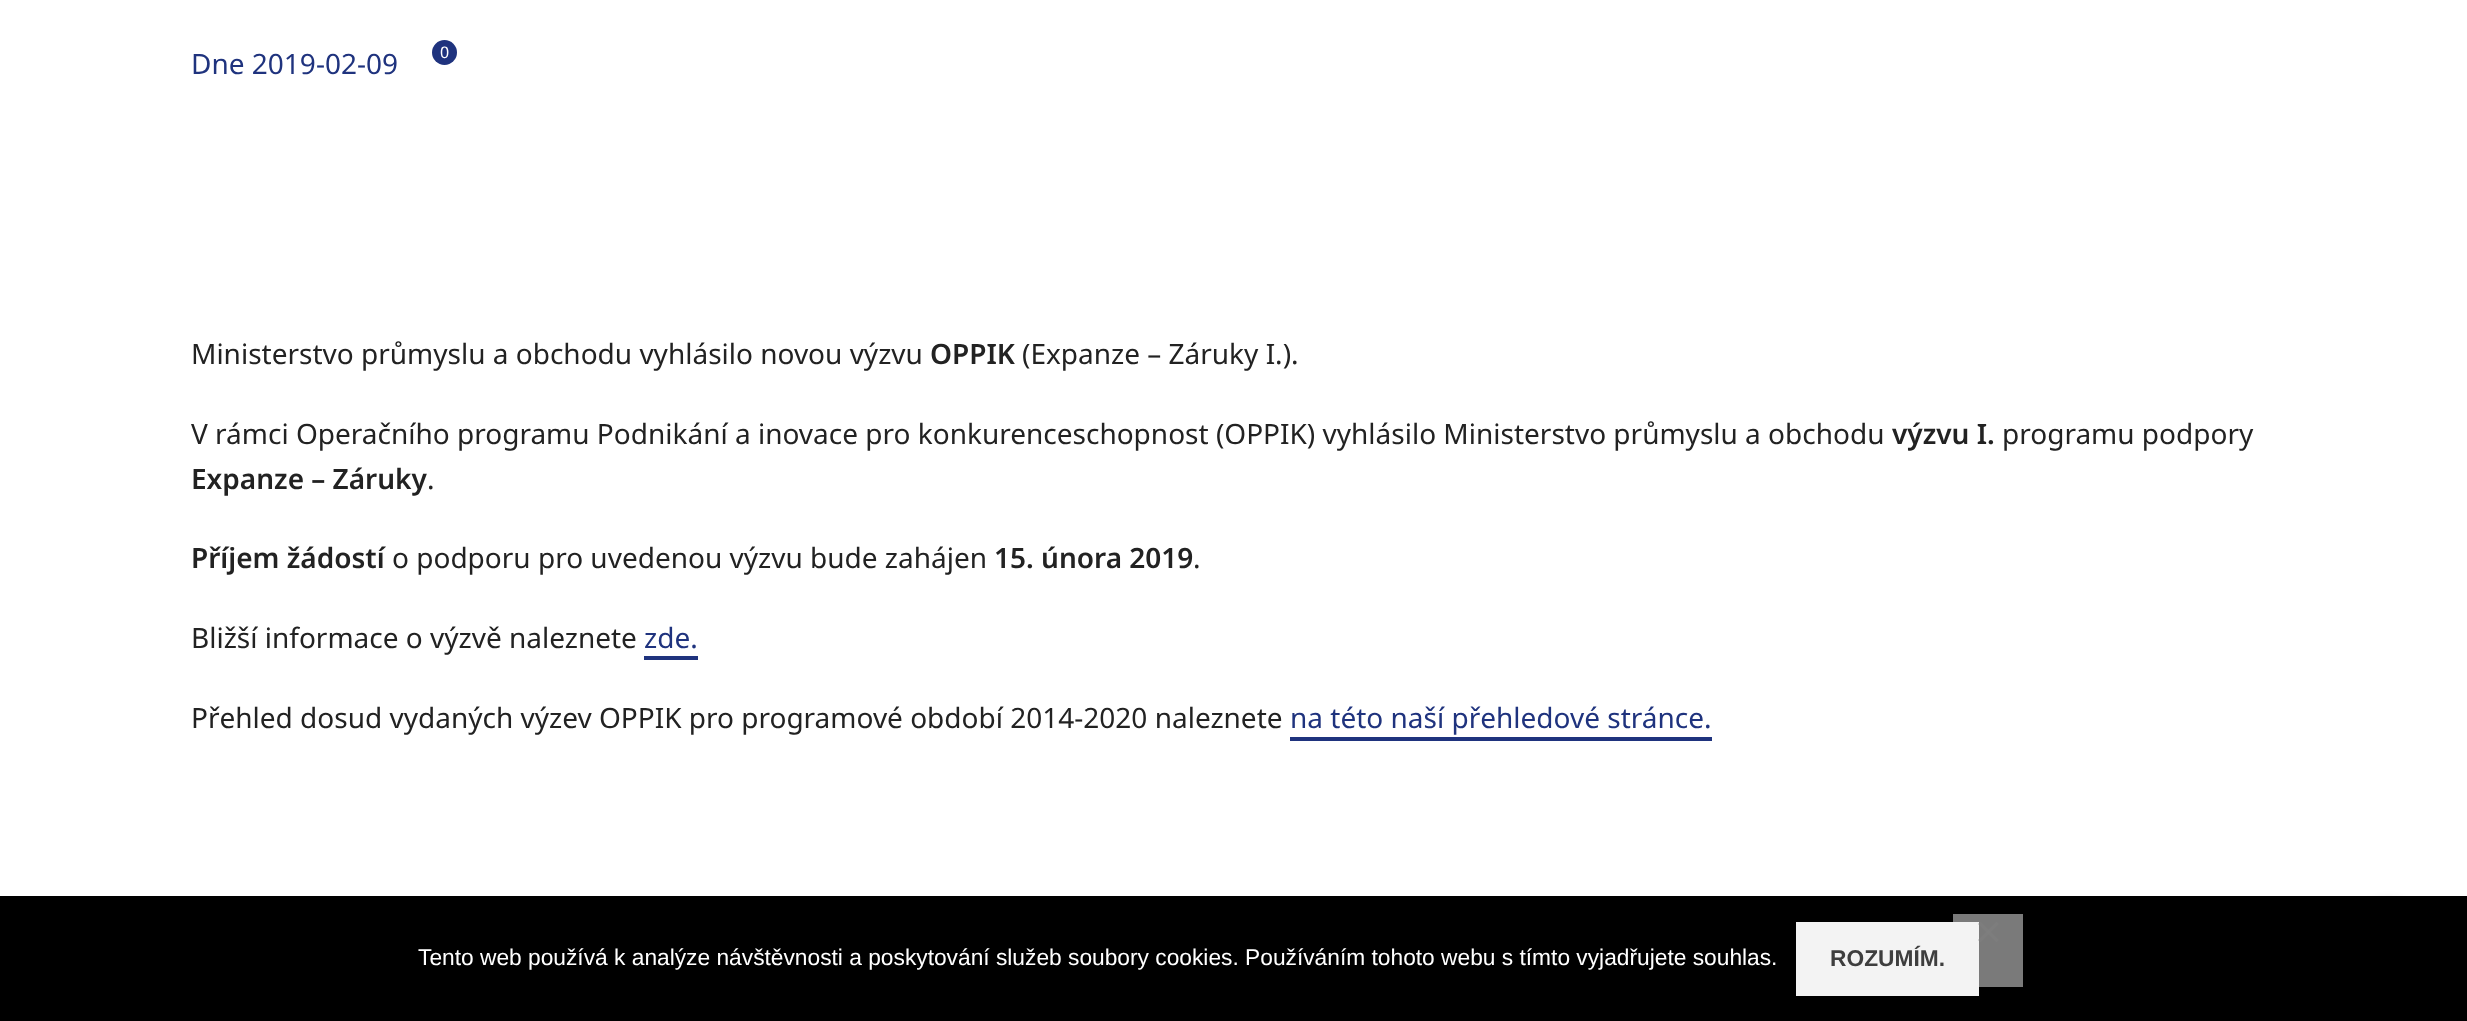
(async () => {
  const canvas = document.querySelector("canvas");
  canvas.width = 2467;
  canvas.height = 1021;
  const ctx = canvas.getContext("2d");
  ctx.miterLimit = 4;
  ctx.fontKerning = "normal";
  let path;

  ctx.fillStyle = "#ffffff";
  ctx.fillRect(0, 0, 2467, 1021);
  ctx.fillStyle = "#1f337e";
  ctx.beginPath();
  ctx.arc(444.5, 52.5, 12.5, 0, Math.PI * 2);
  ctx.fill();
  ctx.fillRect(644, 656, 54, 4);
  ctx.fillRect(1290, 737, 422, 4);
  ctx.fillStyle = "rgba(0, 0, 0, 0.17)";
  ctx.filter = "blur(4.5px)";
  ctx.beginPath();
  ctx.roundRect(2345, 900, 88, 87, 43.5);
  ctx.fill();
  ctx.filter = "none";
  for (const [x, y, w, h, color] of [
    [0, 896, 2467, 125, "#000000"],
    [1953, 914, 70, 73, "#7a7a7a"],
    [1796, 922, 183, 74, "#f3f3f3"],
  ]) {
    ctx.fillStyle = color;
    ctx.fillRect(x, y, w, h);
  }
  ctx.fillStyle = "rgba(128, 128, 128, 0.5)";
  path = new Path2D("M1996.5 921.5L1999 924L1980.5 942.5L1978 940Z");
  ctx.fill(path);
  path = new Path2D("M1978 924L1980.5 921.5L1999 940L1996.5 942.5Z");
  ctx.fill(path);
  ctx.font = "28px Noto Sans";
  ctx.fillStyle = "#1f337e";
  ctx.fillText("Dne 2019-02-09", 191, 74);
  ctx.font = "16px Noto Sans";
  ctx.fillStyle = "#ffffff";
  ctx.fillText("0", 440, 58);
  ctx.font = "28px Noto Sans";
  ctx.fillStyle = "#222222";
  ctx.fillText("Ministerstvo průmyslu a obchodu vyhlásilo novou výzvu", 191, 364);
  ctx.font = "600 28px Noto Sans";
  ctx.fillText("OPPIK", 930, 364);
  ctx.font = "28px Noto Sans";
  ctx.fillText("(Expanze – Záruky I.).", 1022, 364);
  ctx.fillText("V rámci Operačního programu Podnikání a inovace pro konkurenceschopnost (OPPIK) vyhlásilo Ministerstvo průmyslu a obchodu", 191, 444);
  ctx.font = "600 28px Noto Sans";
  ctx.fillText("výzvu I.", 1892, 444);
  ctx.font = "28px Noto Sans";
  ctx.fillText("programu podpory", 2002, 444);
  ctx.font = "600 28px Noto Sans";
  ctx.fillText("Expanze – Záruky", 191, 489);
  ctx.font = "28px Noto Sans";
  ctx.fillText(".", 427, 489);
  ctx.font = "600 28px Noto Sans";
  ctx.fillText("Příjem žádostí", 191, 568);
  ctx.font = "28px Noto Sans";
  ctx.fillText("o podporu pro uvedenou výzvu bude zahájen", 392, 568);
  ctx.font = "600 28px Noto Sans";
  ctx.fillText("15. února 2019", 994, 568);
  ctx.font = "28px Noto Sans";
  ctx.fillText(".", 1193, 568);
  ctx.fillText("Bližší informace o výzvě naleznete", 191, 648);
  ctx.fillStyle = "#1f337e";
  ctx.fillText("zde.", 644, 648);
  ctx.fillStyle = "#222222";
  ctx.fillText("Přehled dosud vydaných výzev OPPIK pro programové období 2014-2020 naleznete", 191, 728);
  ctx.fillStyle = "#1f337e";
  ctx.fillText("na této naší přehledové stránce.", 1290, 728);
  ctx.font = "22.75px Liberation Sans";
  ctx.fillStyle = "#ffffff";
  ctx.fillText("Tento web používá k analýze návštěvnosti a poskytování služeb soubory cookies. Používáním tohoto webu s tímto vyjadřujete souhlas.", 418, 965);
  ctx.font = "bold 22.75px Liberation Sans";
  ctx.fillStyle = "#3e3e3e";
  ctx.fillText("ROZUMÍM.", 1830, 966);
})();
